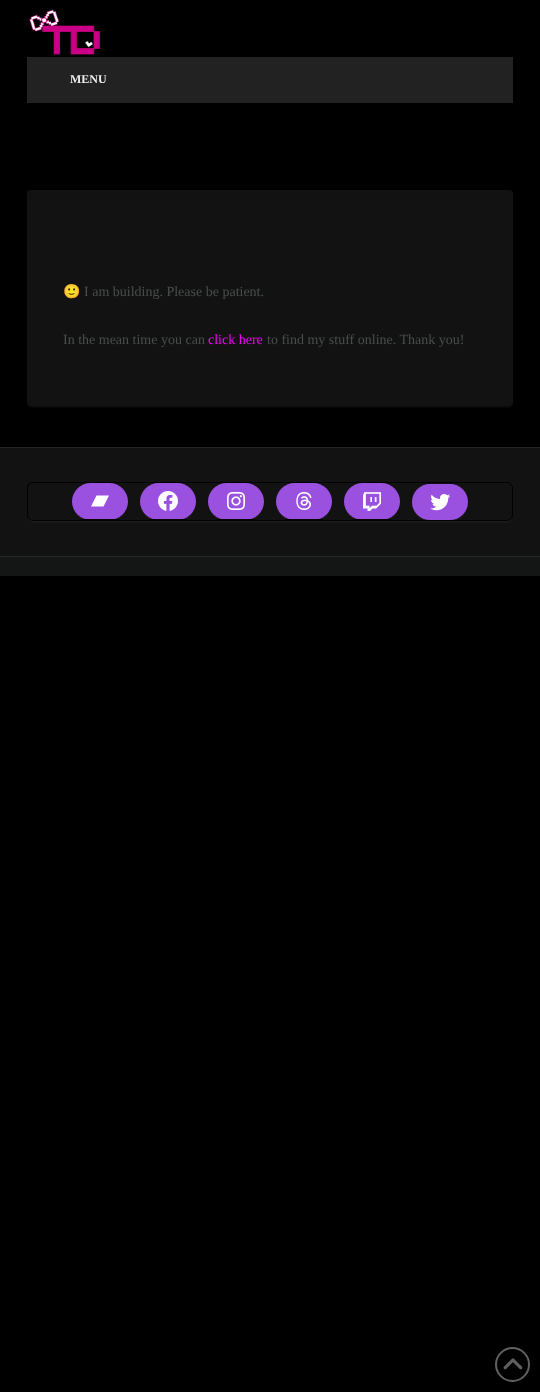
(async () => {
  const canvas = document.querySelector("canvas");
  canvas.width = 540;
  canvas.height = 1392;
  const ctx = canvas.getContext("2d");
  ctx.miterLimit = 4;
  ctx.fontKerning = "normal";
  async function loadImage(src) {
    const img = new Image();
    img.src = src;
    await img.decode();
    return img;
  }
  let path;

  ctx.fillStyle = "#000000";
  ctx.fillRect(0, 0, 540, 1392);
  ctx.drawImage(await loadImage("img/1.png"), 29, 9, 71, 46);
  ctx.fillStyle = "#222222";
  ctx.fillRect(27, 57, 486, 46);
  ctx.fillStyle = "rgba(255, 255, 255, 0.07)";
  ctx.filter = "blur(1px)";
  ctx.beginPath();
  ctx.roundRect(29, 195, 482, 212, 2);
  ctx.fill();
  ctx.filter = "none";
  ctx.fillStyle = "#121212";
  ctx.beginPath();
  ctx.roundRect(27, 190, 486, 216, 4);
  ctx.fill();
  ctx.fillRect(0, 448, 540, 108);
  ctx.fillStyle = "#242424";
  ctx.fillRect(0, 447, 540, 1);
  ctx.fillStyle = "rgba(255, 255, 255, 0.07)";
  ctx.filter = "blur(1px)";
  ctx.beginPath();
  ctx.roundRect(29, 487, 482, 35, 4);
  ctx.fill();
  ctx.filter = "none";
  ctx.fillStyle = "#121212";
  ctx.beginPath();
  ctx.roundRect(27.5, 482.5, 485, 38, 5.5);
  ctx.fill();
  ctx.strokeStyle = "#010101";
  ctx.stroke();
  ctx.fillStyle = "#1c1c1c";
  path = new Path2D("M72 502C72 510 77 518 84 520H90C80 520 72 512 72 502ZM110 520H116C123 518 128 510 128 502C128 512 120 520 110 520Z");
  ctx.fill(path, "evenodd");
  ctx.fillStyle = "#9b51e0";
  ctx.beginPath();
  ctx.roundRect(72, 483, 56, 37, 18.5);
  ctx.fill();
  ctx.fillStyle = "rgba(0, 0, 0, 0.95)";
  ctx.fillRect(81, 519, 38, 1);
  ctx.fillStyle = "#ffffff";
  path = new Path2D("M103.5 506.5H91L96.5 495.5H109L103.5 506.5");
  ctx.fill(path);
  ctx.fillStyle = "#1c1c1c";
  path = new Path2D("M140 502C140 510 145 518 152 520H158C148 520 140 512 140 502ZM178 520H184C191 518 196 510 196 502C196 512 188 520 178 520Z");
  ctx.fill(path, "evenodd");
  ctx.fillStyle = "#9b51e0";
  ctx.beginPath();
  ctx.roundRect(140, 483, 56, 37, 18.5);
  ctx.fill();
  ctx.fillStyle = "rgba(0, 0, 0, 0.95)";
  ctx.fillRect(149, 519, 38, 1);
  ctx.drawImage(await loadImage("img/2.png"), 158, 491, 20, 20);
  ctx.fillStyle = "#1c1c1c";
  path = new Path2D("M208 502C208 510 213 518 220 520H226C216 520 208 512 208 502ZM246 520H252C259 518 264 510 264 502C264 512 256 520 246 520Z");
  ctx.fill(path, "evenodd");
  ctx.fillStyle = "#9b51e0";
  ctx.beginPath();
  ctx.roundRect(208, 483, 56, 37, 18.5);
  ctx.fill();
  ctx.fillStyle = "rgba(0, 0, 0, 0.95)";
  ctx.fillRect(217, 519, 38, 1);
  ctx.drawImage(await loadImage("img/3.png"), 227, 492, 18, 18);
  ctx.fillStyle = "#1c1c1c";
  path = new Path2D("M276 502C276 510 281 518 288 520H294C284 520 276 512 276 502ZM314 520H320C327 518 332 510 332 502C332 512 324 520 314 520Z");
  ctx.fill(path, "evenodd");
  ctx.fillStyle = "#9b51e0";
  ctx.beginPath();
  ctx.roundRect(276, 483, 56, 37, 18.5);
  ctx.fill();
  ctx.fillStyle = "rgba(0, 0, 0, 0.95)";
  ctx.fillRect(285, 519, 38, 1);
  ctx.drawImage(await loadImage("img/4.png"), 296, 492, 16, 18);
  ctx.fillStyle = "#1c1c1c";
  path = new Path2D("M344 502C344 510 349 518 356 520H362C352 520 344 512 344 502ZM382 520H388C395 518 400 510 400 502C400 512 392 520 382 520Z");
  ctx.fill(path, "evenodd");
  ctx.fillStyle = "#9b51e0";
  ctx.beginPath();
  ctx.roundRect(344, 483, 56, 37, 18.5);
  ctx.fill();
  ctx.fillStyle = "rgba(0, 0, 0, 0.95)";
  ctx.fillRect(353, 519, 38, 1);
  ctx.drawImage(await loadImage("img/5.png"), 363, 492, 18, 19);
  ctx.fillStyle = "#1c1c1c";
  path = new Path2D("M412 502C412 510 417 518 424 520H430C420 520 412 512 412 502ZM450 520H456C463 518 468 510 468 502C468 512 460 520 450 520Z");
  ctx.fill(path, "evenodd");
  ctx.fillStyle = "#9b51e0";
  ctx.beginPath();
  ctx.roundRect(412, 484, 56, 36, 18);
  ctx.fill();
  ctx.drawImage(await loadImage("img/6.png"), 430, 494, 20, 17);
  ctx.fillStyle = "#141615";
  ctx.fillRect(0, 557, 540, 19);
  ctx.fillStyle = "#262727";
  ctx.fillRect(0, 556, 540, 1);
  ctx.beginPath();
  ctx.arc(512.5, 1364.5, 16.5, 0, Math.PI * 2);
  ctx.strokeStyle = "#606060";
  ctx.lineWidth = 2;
  ctx.stroke();
  ctx.drawImage(await loadImage("img/7.png"), 503, 1358, 20, 12);
  ctx.font = "bold 12px Liberation Serif";
  ctx.fillStyle = "#eeeeee";
  ctx.fillText("MENU", 70, 83);
  ctx.font = "14px Noto Color Emoji";
  ctx.fillStyle = "#484e4c";
  ctx.fillText("🙂", 63, 296);
  ctx.font = "14px Liberation Serif";
  ctx.fillText("I am building. Please be patient.", 84, 296);
  ctx.fillText("In the mean time you can", 63, 344);
  ctx.fillStyle = "#f500ff";
  ctx.fillText("click here", 208, 344);
  ctx.fillStyle = "#484e4c";
  ctx.fillText("to find my stuff online. Thank you!", 267, 344);
})();
